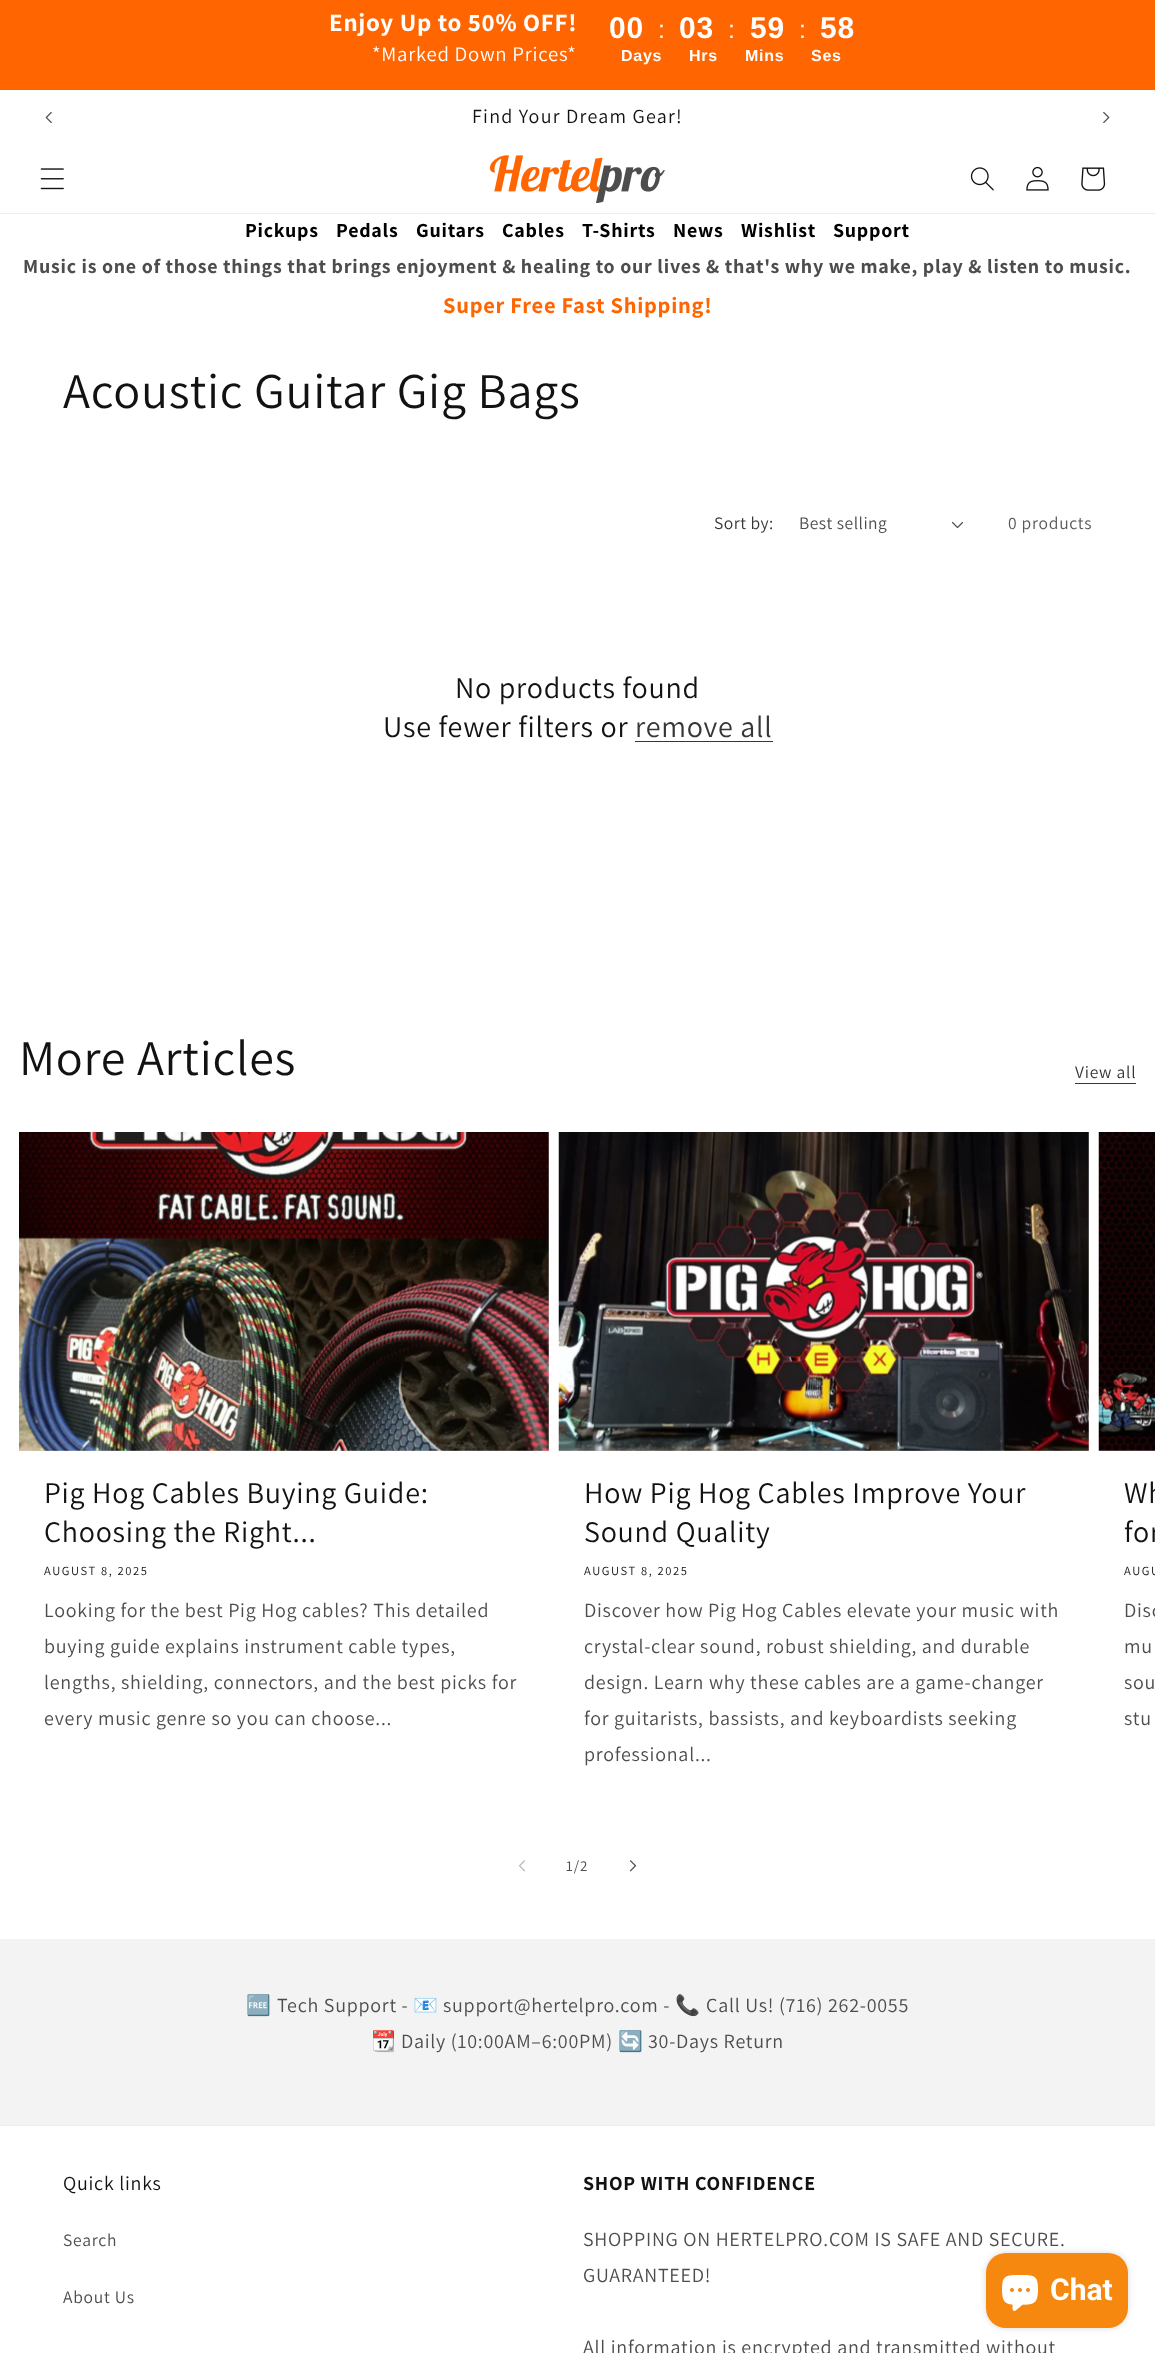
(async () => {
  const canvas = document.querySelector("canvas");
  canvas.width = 1155;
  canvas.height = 2353;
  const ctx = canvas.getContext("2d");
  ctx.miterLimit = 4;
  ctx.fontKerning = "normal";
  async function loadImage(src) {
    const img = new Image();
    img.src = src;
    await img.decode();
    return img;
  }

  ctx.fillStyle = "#ffffff";
  ctx.fillRect(0, 0, 1155, 2353);
  ctx.fillStyle = "#ff6501";
  ctx.fillRect(0, 0, 1155, 90);
  ctx.drawImage(await loadImage("img/1.png"), 45, 111, 7, 12);
  ctx.drawImage(await loadImage("img/2.png"), 1103, 112, 7, 11);
  ctx.fillStyle = "#ececec";
  ctx.fillRect(0, 213, 1155, 1);
  ctx.drawImage(await loadImage("img/3.png"), 40, 168, 24, 22);
  ctx.drawImage(await loadImage("img/4.png"), 490, 155, 175, 48);
  ctx.drawImage(await loadImage("img/5.png"), 970, 167, 24, 24);
  ctx.drawImage(await loadImage("img/6.png"), 1026, 166, 23, 25);
  ctx.drawImage(await loadImage("img/7.png"), 1081, 167, 25, 24);
  ctx.drawImage(await loadImage("img/8.png"), 951, 521, 13, 8);
  for (const [x, y, w, h, color] of [
    [635, 741, 138, 1, "#363636"],
    [1075, 1083, 61, 1, "#363636"],
    [19, 1133, 530, 318, "#dddddd"],
  ]) {
    ctx.fillStyle = color;
    ctx.fillRect(x, y, w, h);
  }
  ctx.drawImage(await loadImage("img/9.png"), 19, 1132, 530, 319);
  ctx.fillRect(559, 1133, 530, 318);
  ctx.drawImage(await loadImage("img/10.png"), 558, 1132, 531, 319);
  ctx.drawImage(await loadImage("img/11.png"), 1098, 1132, 57, 319);
  ctx.drawImage(await loadImage("img/12.png"), 519, 1860, 6, 12);
  ctx.drawImage(await loadImage("img/13.png"), 629, 1860, 7, 12);
  ctx.fillStyle = "#f3f3f3";
  ctx.fillRect(0, 1939, 1155, 186);
  ctx.fillStyle = "#ececec";
  ctx.fillRect(0, 2125, 1155, 1);
  ctx.fillStyle = "rgba(0, 0, 0, 0.15)";
  ctx.filter = "blur(3px)";
  ctx.beginPath();
  ctx.roundRect(986, 2253, 142, 75, 20);
  ctx.fill();
  ctx.filter = "none";
  ctx.fillStyle = "#f6870f";
  ctx.beginPath();
  ctx.roundRect(986, 2253, 142, 75, 20);
  ctx.fill();
  ctx.drawImage(await loadImage("img/14.png"), 1002, 2275, 36, 36);
  ctx.letterSpacing = "0.75px";
  ctx.font = "bold 25px Assistant";
  ctx.fillStyle = "#ffffff";
  ctx.fillText("Enjoy Up to 50% OFF!", 329, 31);
  ctx.font = "20.75px Assistant";
  ctx.fillText("*Marked Down Prices*", 372, 61);
  ctx.font = "bold 30px Liberation Sans";
  ctx.fillText("00", 609, 38);
  ctx.font = "25px Liberation Sans";
  ctx.fillText(":", 658, 38);
  ctx.font = "bold 30px Liberation Sans";
  ctx.fillText("03", 679, 38);
  ctx.font = "25px Liberation Sans";
  ctx.fillText(":", 728, 38);
  ctx.font = "bold 30px Liberation Sans";
  ctx.fillText("59", 750, 38);
  ctx.font = "25px Liberation Sans";
  ctx.fillText(":", 799, 38);
  ctx.font = "bold 30px Liberation Sans";
  ctx.fillText("58", 820, 38);
  ctx.font = "bold 16px Liberation Sans";
  for (const [text, x, y] of [
    ["Days", 621, 61],
    ["Hrs", 689, 61],
    ["Mins", 745, 61],
    ["Ses", 811, 61],
  ]) {
    ctx.fillText(text, x, y);
  }
  ctx.letterSpacing = "1.25px";
  ctx.font = "20px Assistant";
  ctx.fillStyle = "#121212";
  ctx.fillText("Find Your Dream Gear!", 472, 123);
  ctx.letterSpacing = "0.75px";
  ctx.font = "bold 20px Assistant";
  ctx.fillStyle = "#000000";
  for (const [text, x, y] of [
    ["Pickups", 245, 237],
    ["Pedals", 336, 237],
    ["Guitars", 416, 237],
    ["Cables", 502, 237],
    ["T-Shirts", 582, 237],
    ["News", 673, 237],
    ["Wishlist", 741, 237],
    ["Support", 833, 237],
  ]) {
    ctx.fillText(text, x, y);
  }
  ctx.fillStyle = "#4d4d4d";
  ctx.fillText("Music is one of those things that brings enjoyment & healing to our lives & that's why we make, play & listen to music.", 23, 273);
  ctx.font = "bold 22.5px Assistant";
  ctx.fillStyle = "#ff6501";
  ctx.fillText("Super Free Fast Shipping!", 443, 313);
  ctx.font = "50px Assistant";
  ctx.fillStyle = "#121212";
  ctx.fillText("Acoustic Guitar Gig Bags", 63, 408);
  ctx.letterSpacing = "0.5px";
  ctx.font = "17.5px Assistant";
  ctx.fillStyle = "#363636";
  ctx.fillText("Sort by:", 714, 529);
  ctx.fillStyle = "#4d4d4d";
  ctx.fillText("Best selling", 799, 529);
  ctx.letterSpacing = "0.75px";
  ctx.fillStyle = "#595959";
  ctx.fillText("0 products", 1008, 529);
  ctx.font = "30px Assistant";
  ctx.fillStyle = "#121212";
  ctx.fillText("No products found", 455, 698);
  ctx.fillText("Use fewer filters or", 383, 737);
  ctx.fillStyle = "#363636";
  ctx.fillText("remove all", 635, 737);
  ctx.font = "50px Assistant";
  ctx.fillStyle = "#121212";
  ctx.fillText("More Articles", 19, 1075);
  ctx.font = "17.5px Assistant";
  ctx.fillStyle = "#363636";
  ctx.fillText("View all", 1075, 1078);
  ctx.font = "30px Assistant";
  ctx.fillStyle = "#121212";
  ctx.fillText("Pig Hog Cables Buying Guide:", 44, 1503);
  ctx.fillText("Choosing the Right...", 44, 1542);
  ctx.letterSpacing = "1.6px";
  ctx.font = "12.5px Assistant";
  ctx.fillText("AUGUST 8, 2025", 44, 1575);
  ctx.letterSpacing = "0.75px";
  ctx.font = "20px Assistant";
  ctx.fillStyle = "#4d4d4d";
  for (const [text, x, y] of [
    ["Looking for the best Pig Hog cables? This detailed", 44, 1617],
    ["buying guide explains instrument cable types,", 44, 1653],
    ["lengths, shielding, connectors, and the best picks for", 44, 1689],
    ["every music genre so you can choose...", 44, 1725],
  ]) {
    ctx.fillText(text, x, y);
  }
  ctx.font = "30px Assistant";
  ctx.fillStyle = "#121212";
  ctx.fillText("How Pig Hog Cables Improve Your", 584, 1503);
  ctx.fillText("Sound Quality", 584, 1542);
  ctx.letterSpacing = "1.6px";
  ctx.font = "12.5px Assistant";
  ctx.fillText("AUGUST 8, 2025", 584, 1575);
  ctx.letterSpacing = "0.75px";
  ctx.font = "20px Assistant";
  ctx.fillStyle = "#4d4d4d";
  for (const [text, x, y] of [
    ["Discover how Pig Hog Cables elevate your music with", 584, 1617],
    ["crystal-clear sound, robust shielding, and durable", 584, 1653],
    ["design. Learn why these cables are a game-changer", 584, 1689],
    ["for guitarists, bassists, and keyboardists seeking", 584, 1725],
    ["professional...", 584, 1761],
  ]) {
    ctx.fillText(text, x, y);
  }
  ctx.font = "30px Assistant";
  ctx.fillStyle = "#121212";
  ctx.fillText("Wh", 1124, 1503);
  ctx.fillText("for", 1124, 1542);
  ctx.letterSpacing = "1.6px";
  ctx.font = "12.5px Assistant";
  ctx.fillText("AUGU", 1124, 1575);
  ctx.letterSpacing = "0.75px";
  ctx.font = "20px Assistant";
  ctx.fillStyle = "#4d4d4d";
  for (const [text, x, y] of [
    ["Disc", 1124, 1617],
    ["mu", 1124, 1653],
    ["sou", 1124, 1689],
    ["stu", 1124, 1725],
  ]) {
    ctx.fillText(text, x, y);
  }
  ctx.letterSpacing = "1px";
  ctx.font = "15px Assistant";
  ctx.fillText("1/2", 566, 1871);
  ctx.letterSpacing = "0.75px";
  ctx.font = "20px Noto Color Emoji";
  ctx.fillText("🆓", 246, 2012);
  ctx.font = "20px Assistant";
  ctx.fillText("Tech Support -", 277, 2012);
  ctx.font = "20px Noto Color Emoji";
  ctx.fillText("📧", 413, 2012);
  ctx.font = "20px Assistant";
  ctx.fillText("support@hertelpro.com -", 443, 2012);
  ctx.font = "20px Noto Color Emoji";
  ctx.fillText("📞", 675, 2012);
  ctx.font = "20px Assistant";
  ctx.fillText("Call Us! (716) 262-0055", 706, 2012);
  ctx.font = "20px Noto Color Emoji";
  ctx.fillText("📆", 371, 2048);
  ctx.font = "20px Assistant";
  ctx.fillText("Daily (10:00AM–6:00PM)", 401, 2048);
  ctx.font = "20px Noto Color Emoji";
  ctx.fillText("🔄", 618, 2048);
  ctx.font = "20px Assistant";
  ctx.fillText("30-Days Return", 648, 2048);
  ctx.fillStyle = "#121212";
  ctx.fillText("Quick links", 63, 2190);
  ctx.font = "17.5px Assistant";
  ctx.fillStyle = "#4d4d4d";
  ctx.fillText("Search", 63, 2246);
  ctx.fillText("About Us", 63, 2303);
  ctx.font = "bold 20px Assistant";
  ctx.fillStyle = "#121212";
  ctx.fillText("SHOP WITH CONFIDENCE", 583, 2190);
  ctx.font = "20px Assistant";
  ctx.fillStyle = "#4d4d4d";
  for (const [text, x, y] of [
    ["SHOPPING ON HERTELPRO.COM IS SAFE AND SECURE.", 583, 2246],
    ["GUARANTEED!", 583, 2282],
    ["All information is encrypted and transmitted without", 583, 2354],
  ]) {
    ctx.fillText(text, x, y);
  }
  ctx.letterSpacing = "0px";
  ctx.font = "bold 30px Roboto";
  ctx.fillStyle = "#ffffff";
  ctx.fillText("Chat", 1050, 2300);
})();
